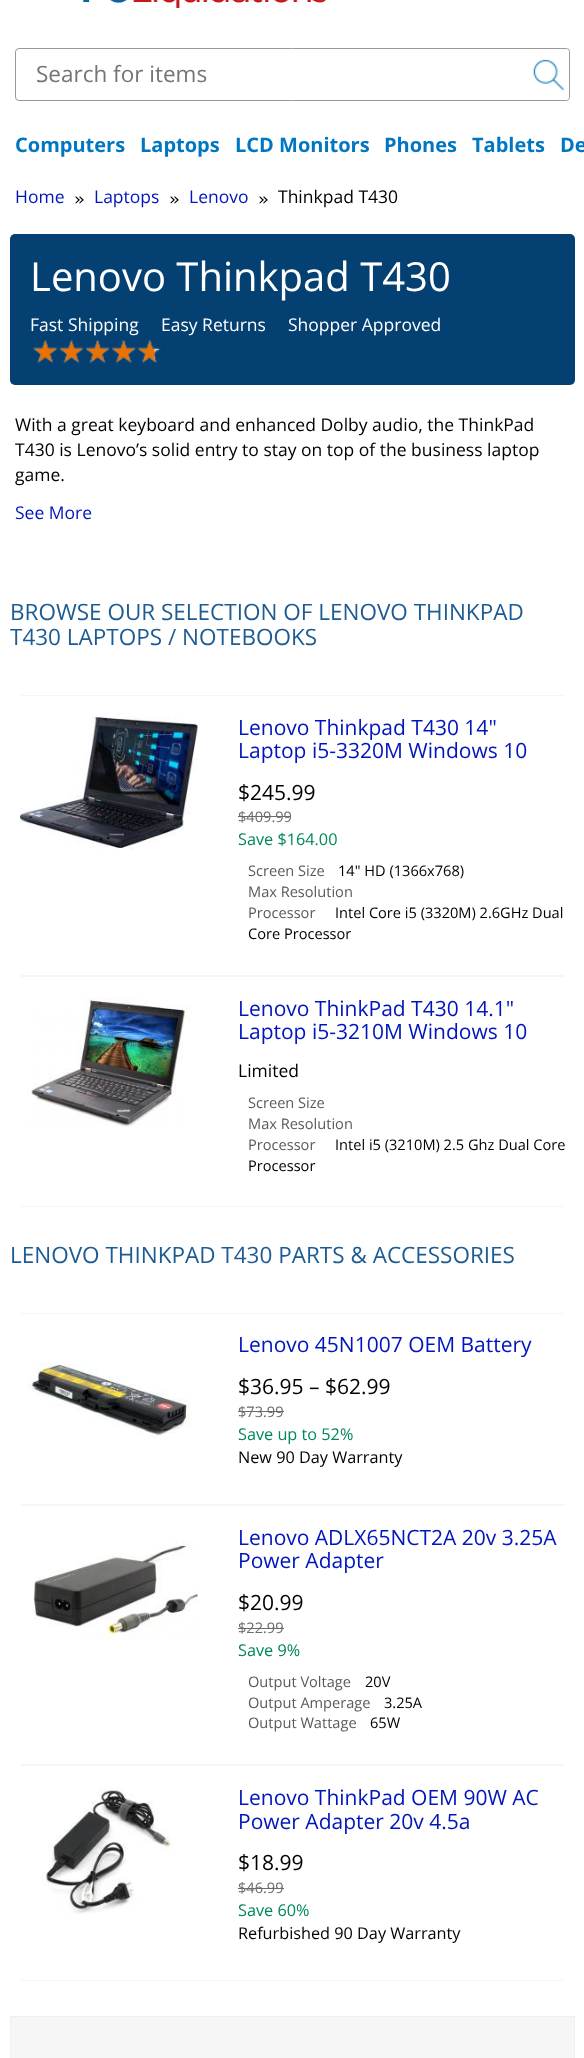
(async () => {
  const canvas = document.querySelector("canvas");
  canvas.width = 584;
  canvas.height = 2058;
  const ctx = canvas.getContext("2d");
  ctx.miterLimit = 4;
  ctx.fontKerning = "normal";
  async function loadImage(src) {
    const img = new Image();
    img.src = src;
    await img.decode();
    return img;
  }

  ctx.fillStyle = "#ffffff";
  ctx.fillRect(0, 0, 584, 2058);
  ctx.drawImage(await loadImage("img/1.png"), 83, 0, 243, 8);
  ctx.beginPath();
  ctx.roundRect(15.5, 48.5, 554, 52, 3.5);
  ctx.strokeStyle = "#999999";
  ctx.stroke();
  ctx.beginPath();
  ctx.roundRect(529, 49, 40, 51, [0, 4, 4, 0]);
  ctx.fill();
  ctx.drawImage(await loadImage("img/2.png"), 533, 59, 31, 32);
  ctx.fillStyle = "#054072";
  ctx.beginPath();
  ctx.roundRect(10, 234, 565, 151, 5);
  ctx.fill();
  ctx.drawImage(await loadImage("img/3.png"), 33, 340, 128, 23);
  ctx.fillStyle = "#f5f5f5";
  ctx.fillRect(21, 695, 543, 1);
  ctx.fillRect(21, 975, 543, 2);
  ctx.drawImage(await loadImage("img/4.png"), 20, 716, 178, 133);
  ctx.fillStyle = "#6b6b6b";
  ctx.fillRect(238, 816, 53, 1);
  ctx.fillStyle = "#f5f5f5";
  ctx.fillRect(21, 1206, 543, 1);
  ctx.drawImage(await loadImage("img/5.png"), 28, 997, 162, 130);
  ctx.fillRect(21, 1313, 543, 1);
  ctx.fillRect(21, 1504, 543, 2);
  ctx.drawImage(await loadImage("img/6.png"), 27, 1362, 164, 77);
  ctx.fillStyle = "#6b6b6b";
  ctx.fillRect(238, 1411, 46, 1);
  ctx.fillStyle = "#f5f5f5";
  ctx.fillRect(21, 1764, 543, 2);
  ctx.drawImage(await loadImage("img/7.png"), 33, 1541, 165, 100);
  ctx.fillStyle = "#6b6b6b";
  ctx.fillRect(238, 1628, 46, 1);
  ctx.fillStyle = "#f5f5f5";
  ctx.fillRect(21, 1980, 543, 1);
  ctx.drawImage(await loadImage("img/8.png"), 41, 1786, 134, 128);
  ctx.fillStyle = "#6b6b6b";
  ctx.fillRect(238, 1888, 46, 1);
  ctx.fillStyle = "#f6f6f6";
  ctx.beginPath();
  ctx.rect(10.5, 2016.5, 564, 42);
  ctx.fill();
  ctx.strokeStyle = "#efefef";
  ctx.stroke();
  ctx.font = "22.5px Open Sans";
  ctx.fillStyle = "#757575";
  ctx.fillText("Search for items", 36, 82);
  ctx.font = "bold 20px Open Sans";
  ctx.fillStyle = "#0077c3";
  for (const [text, x, y] of [
    ["Computers", 15, 152],
    ["Laptops", 140, 152],
    ["LCD Monitors", 235, 152],
    ["Phones", 384, 152],
    ["Tablets", 472, 152],
    ["De", 560, 152],
  ]) {
    ctx.fillText(text, x, y);
  }
  ctx.font = "17.5px Open Sans";
  ctx.fillStyle = "#0016bc";
  ctx.fillText("Home", 15, 203);
  ctx.font = "17.5px DejaVu Sans Mono";
  ctx.fillStyle = "#000000";
  ctx.fillText("»", 74, 205);
  ctx.font = "17.5px Open Sans";
  ctx.fillStyle = "#0016bc";
  ctx.fillText("Laptops", 94, 203);
  ctx.font = "17.5px DejaVu Sans Mono";
  ctx.fillStyle = "#000000";
  ctx.fillText("»", 169, 205);
  ctx.font = "17.5px Open Sans";
  ctx.fillStyle = "#0016bc";
  ctx.fillText("Lenovo", 189, 203);
  ctx.font = "17.5px DejaVu Sans Mono";
  ctx.fillStyle = "#000000";
  ctx.fillText("»", 258, 205);
  ctx.font = "17.5px Open Sans";
  ctx.fillText("Thinkpad T430", 278, 203);
  ctx.font = "40px Open Sans";
  ctx.fillStyle = "#ffffff";
  ctx.fillText("Lenovo Thinkpad T430", 30, 291);
  ctx.font = "17.5px Open Sans";
  for (const [text, x, y] of [
    ["Fast Shipping", 30, 331],
    ["Easy Returns", 161, 331],
    ["Shopper Approved", 288, 331],
  ]) {
    ctx.fillText(text, x, y);
  }
  ctx.fillStyle = "#000000";
  for (const [text, x, y] of [
    ["With a great keyboard and enhanced Dolby audio, the ThinkPad", 15, 431],
    ["T430 is Lenovo’s solid entry to stay on top of the business laptop", 15, 456],
    ["game.", 15, 481],
  ]) {
    ctx.fillText(text, x, y);
  }
  ctx.fillStyle = "#0016bc";
  ctx.fillText("See More", 15, 519);
  ctx.font = "22.5px Open Sans";
  ctx.fillStyle = "#1c5b93";
  ctx.fillText("BROWSE OUR SELECTION OF LENOVO THINKPAD", 10, 620);
  ctx.fillText("T430 LAPTOPS / NOTEBOOKS", 10, 645);
  ctx.font = "21px Open Sans";
  ctx.fillStyle = "#0016bc";
  ctx.fillText("Lenovo Thinkpad T430 14\"", 238, 735);
  ctx.fillText("Laptop i5-3320M Windows 10", 238, 758);
  ctx.fillStyle = "#000000";
  ctx.fillText("$245.99", 238, 800);
  ctx.font = "14.6px Open Sans";
  ctx.fillStyle = "#6b6b6b";
  ctx.fillText("$409.99", 238, 822);
  ctx.font = "16.25px Open Sans";
  ctx.fillStyle = "#008855";
  ctx.fillText("Save $164.00", 238, 845);
  ctx.font = "14.6px Open Sans";
  ctx.fillStyle = "#5a5a5a";
  ctx.fillText("Screen Size", 248, 876);
  ctx.fillStyle = "#000000";
  ctx.fillText("14\" HD (1366x768)", 338, 876);
  ctx.fillStyle = "#5a5a5a";
  ctx.fillText("Max Resolution", 248, 897);
  ctx.fillText("Processor", 248, 918);
  ctx.fillStyle = "#000000";
  ctx.fillText("Intel Core i5 (3320M) 2.6GHz Dual", 335, 918);
  ctx.fillText("Core Processor", 248, 939);
  ctx.font = "21px Open Sans";
  ctx.fillStyle = "#0016bc";
  ctx.fillText("Lenovo ThinkPad T430 14.1\"", 238, 1016);
  ctx.fillText("Laptop i5-3210M Windows 10", 238, 1039);
  ctx.font = "17.5px Open Sans";
  ctx.fillStyle = "#000000";
  ctx.fillText("Limited", 238, 1077);
  ctx.font = "14.6px Open Sans";
  ctx.fillStyle = "#5a5a5a";
  for (const [text, x, y] of [
    ["Screen Size", 248, 1108],
    ["Max Resolution", 248, 1129],
    ["Processor", 248, 1150],
  ]) {
    ctx.fillText(text, x, y);
  }
  ctx.fillStyle = "#000000";
  ctx.fillText("Intel i5 (3210M) 2.5 Ghz Dual Core", 335, 1150);
  ctx.fillText("Processor", 248, 1171);
  ctx.font = "22.5px Open Sans";
  ctx.fillStyle = "#1c5b93";
  ctx.fillText("LENOVO THINKPAD T430 PARTS & ACCESSORIES", 10, 1263);
  ctx.font = "21px Open Sans";
  ctx.fillStyle = "#0016bc";
  ctx.fillText("Lenovo 45N1007 OEM Battery", 238, 1352);
  ctx.fillStyle = "#000000";
  ctx.fillText("$36.95 – $62.99", 238, 1394);
  ctx.font = "14.6px Open Sans";
  ctx.fillStyle = "#6b6b6b";
  ctx.fillText("$73.99", 238, 1417);
  ctx.font = "16.25px Open Sans";
  ctx.fillStyle = "#008855";
  ctx.fillText("Save up to 52%", 238, 1440);
  ctx.fillStyle = "#000000";
  ctx.fillText("New 90 Day Warranty", 238, 1463);
  ctx.font = "21px Open Sans";
  ctx.fillStyle = "#0016bc";
  ctx.fillText("Lenovo ADLX65NCT2A 20v 3.25A", 238, 1545);
  ctx.fillText("Power Adapter", 238, 1568);
  ctx.fillStyle = "#000000";
  ctx.fillText("$20.99", 238, 1610);
  ctx.font = "14.6px Open Sans";
  ctx.fillStyle = "#6b6b6b";
  ctx.fillText("$22.99", 238, 1633);
  ctx.font = "16.25px Open Sans";
  ctx.fillStyle = "#008855";
  ctx.fillText("Save 9%", 238, 1656);
  ctx.font = "14.6px Open Sans";
  ctx.fillStyle = "#5a5a5a";
  ctx.fillText("Output Voltage", 248, 1687);
  ctx.fillStyle = "#000000";
  ctx.fillText("20V", 365, 1687);
  ctx.fillStyle = "#5a5a5a";
  ctx.fillText("Output Amperage", 248, 1708);
  ctx.fillStyle = "#000000";
  ctx.fillText("3.25A", 384, 1708);
  ctx.fillStyle = "#5a5a5a";
  ctx.fillText("Output Wattage", 248, 1728);
  ctx.fillStyle = "#000000";
  ctx.fillText("65W", 370, 1728);
  ctx.font = "21px Open Sans";
  ctx.fillStyle = "#0016bc";
  ctx.fillText("Lenovo ThinkPad OEM 90W AC", 238, 1805);
  ctx.fillText("Power Adapter 20v 4.5a", 238, 1829);
  ctx.fillStyle = "#000000";
  ctx.fillText("$18.99", 238, 1870);
  ctx.font = "14.6px Open Sans";
  ctx.fillStyle = "#6b6b6b";
  ctx.fillText("$46.99", 238, 1893);
  ctx.font = "16.25px Open Sans";
  ctx.fillStyle = "#008855";
  ctx.fillText("Save 60%", 238, 1916);
  ctx.fillStyle = "#000000";
  ctx.fillText("Refurbished 90 Day Warranty", 238, 1939);
})();
